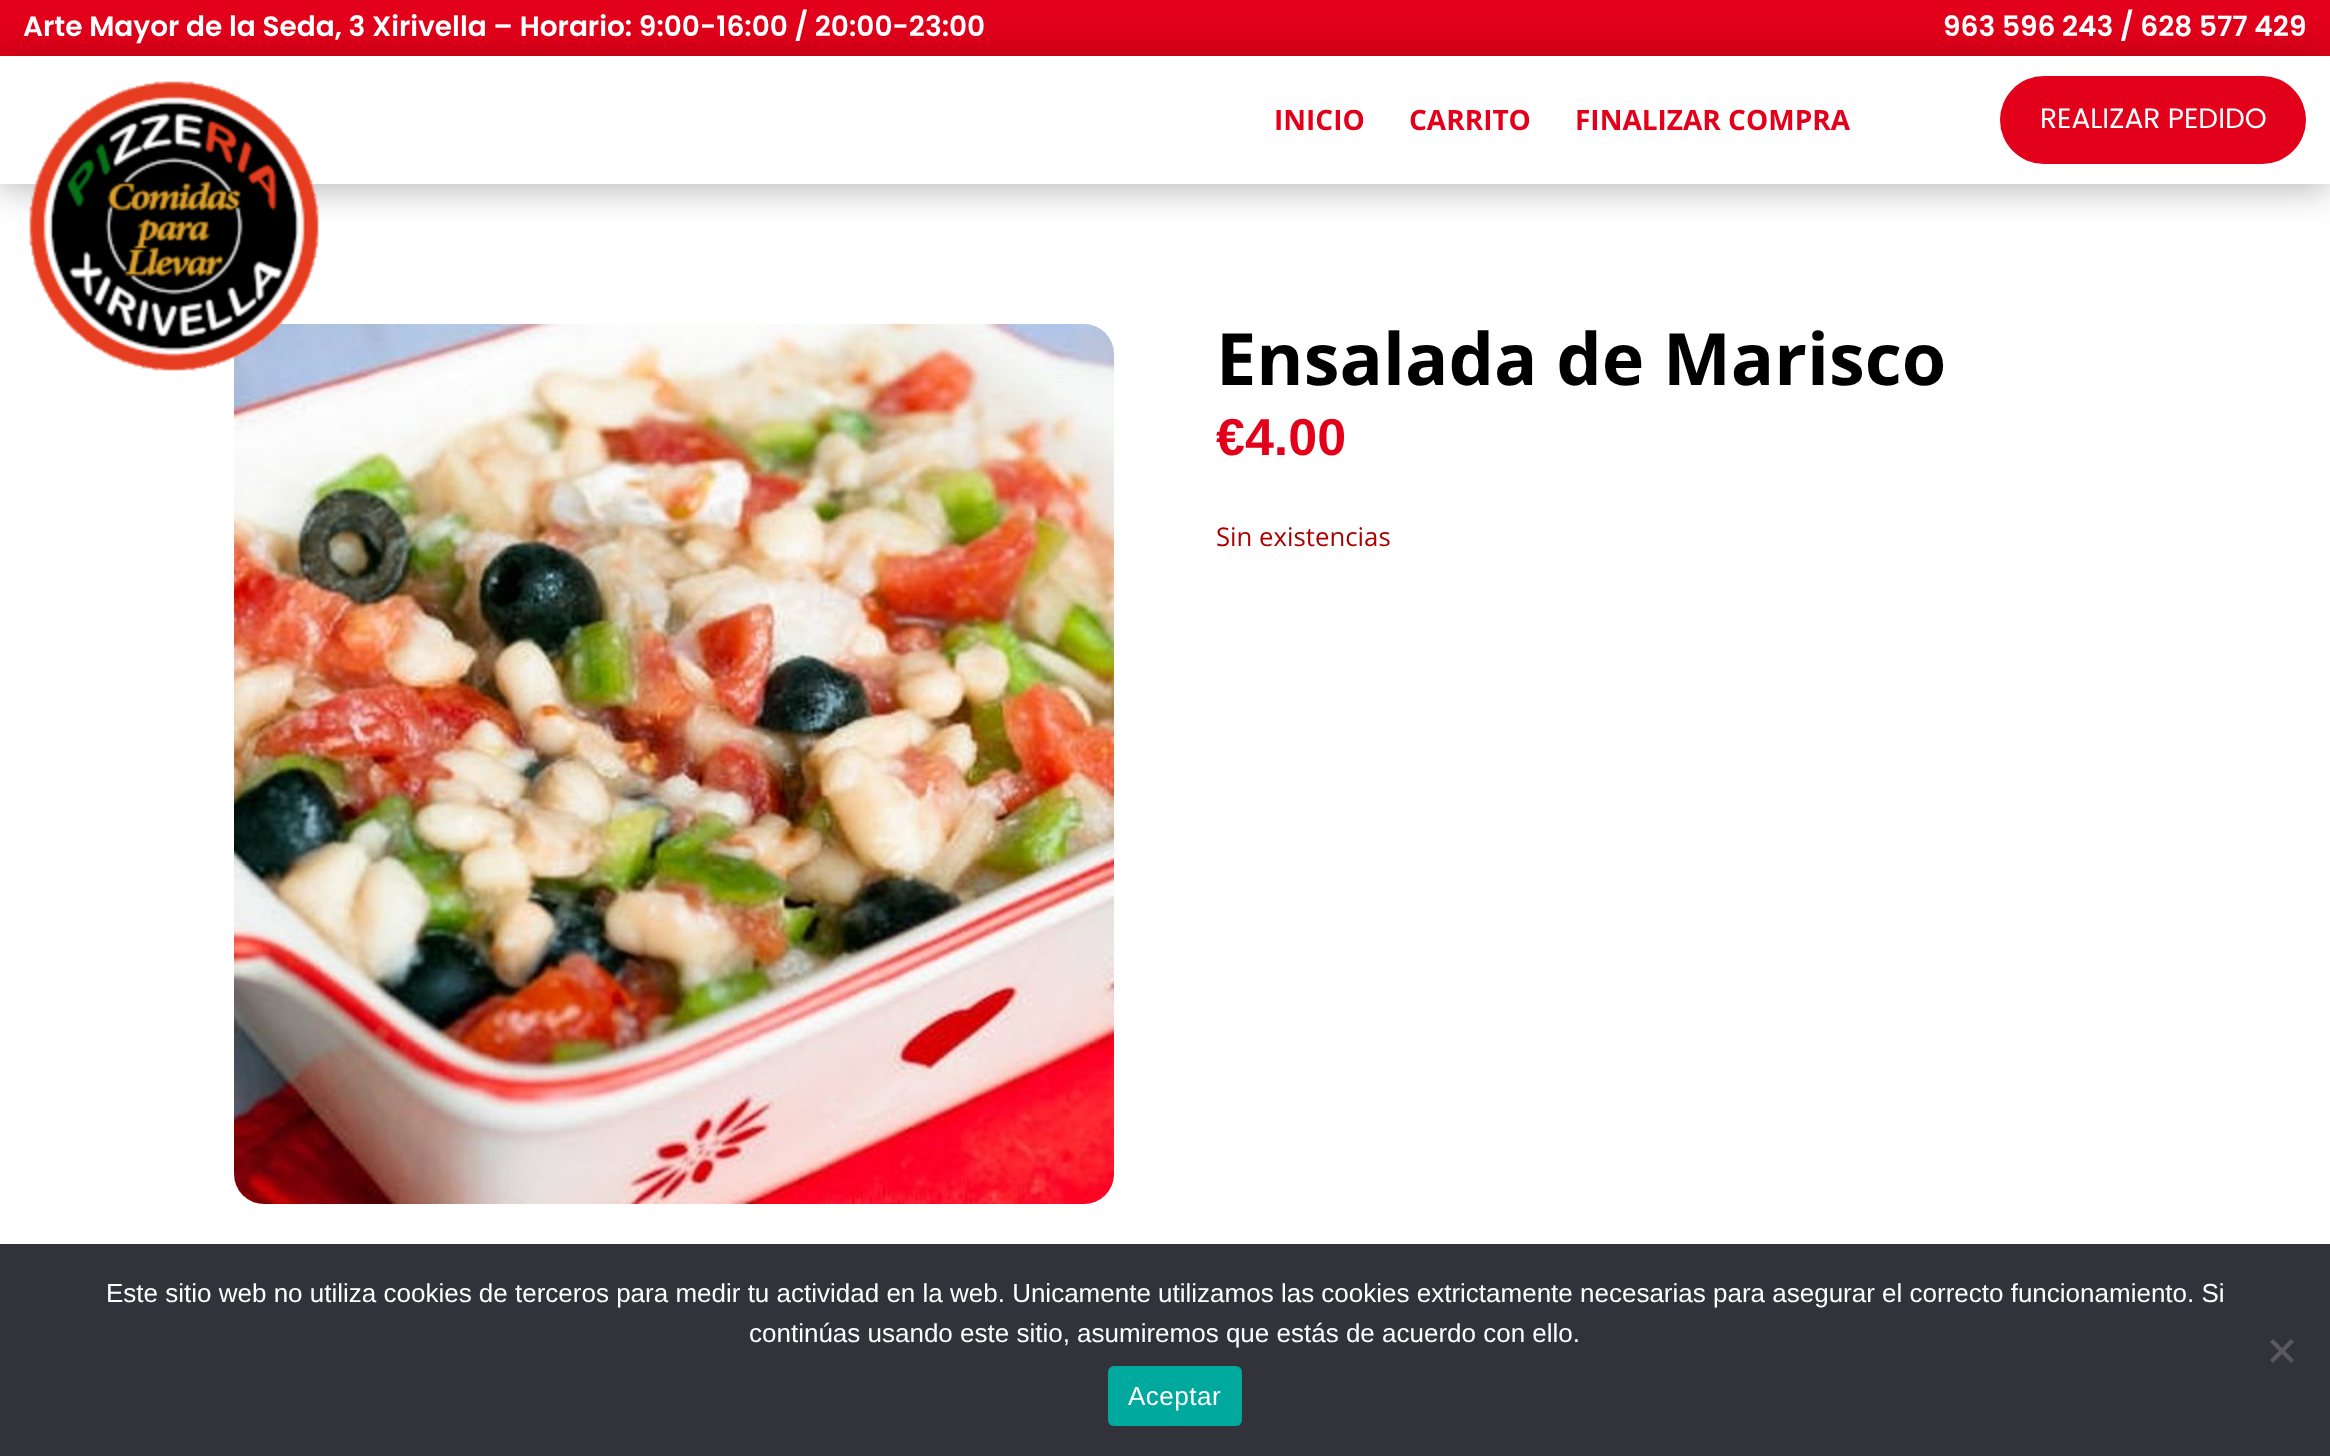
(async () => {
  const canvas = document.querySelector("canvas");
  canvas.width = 2330;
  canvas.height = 1456;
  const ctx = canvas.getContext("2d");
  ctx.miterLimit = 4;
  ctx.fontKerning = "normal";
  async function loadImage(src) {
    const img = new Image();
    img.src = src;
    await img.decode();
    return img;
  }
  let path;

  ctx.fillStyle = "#ffffff";
  ctx.fillRect(0, 0, 2330, 1456);
  ctx.fillStyle = "#e2001a";
  ctx.fillRect(0, 0, 2330, 56);
  ctx.save();
  path = new Path2D("M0 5H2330V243H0ZM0 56H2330V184H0Z");
  ctx.clip(path, "evenodd");
  ctx.fillStyle = "rgba(0, 0, 0, 0.3)";
  ctx.filter = "blur(18px)";
  ctx.beginPath();
  ctx.rect(0, 60, 2330, 128);
  ctx.fill();
  ctx.filter = "none";
  ctx.restore();
  ctx.drawImage(await loadImage("img/2.png"), 234, 324, 880, 880);
  ctx.drawImage(await loadImage("img/1.png"), 29, 81, 290, 290);
  ctx.beginPath();
  ctx.roundRect(2000, 76, 306, 88, 44);
  ctx.fill();
  ctx.fillStyle = "#32323a";
  ctx.fillRect(0, 1244, 2330, 212);
  ctx.fillStyle = "#59595d";
  path = new Path2D("M2291 1339L2294 1342L2273 1363L2270 1360Z");
  ctx.fill(path);
  path = new Path2D("M2270 1342L2273 1339L2294 1360L2291 1363Z");
  ctx.fill(path);
  ctx.fillStyle = "#00a99d";
  ctx.beginPath();
  ctx.roundRect(1108, 1366, 134, 60, 6);
  ctx.fill();
  ctx.font = "600 28px Poppins";
  ctx.fillStyle = "#ffffff";
  ctx.fillText("Arte Mayor de la Seda, 3 Xirivella – Horario: 9:00-16:00 / 20:00-23:00", 23, 36);
  ctx.fillText("963 596 243 / 628 577 429", 1943, 36);
  ctx.font = "bold 28px Open Sans";
  ctx.fillStyle = "#e2001a";
  for (const [text, x, y] of [
    ["INICIO", 1274, 130],
    ["CARRITO", 1409, 130],
    ["FINALIZAR COMPRA", 1575, 130],
  ]) {
    ctx.fillText(text, x, y);
  }
  ctx.font = "28px Poppins";
  ctx.fillStyle = "#ffffff";
  ctx.fillText("REALIZAR PEDIDO", 2040, 128);
  ctx.font = "bold 72px Open Sans";
  ctx.fillStyle = "#000000";
  ctx.fillText("Ensalada de Marisco", 1216, 385);
  ctx.font = "bold 52px Liberation Sans";
  ctx.fillStyle = "#e2001a";
  ctx.fillText("€4.00", 1216, 455);
  ctx.font = "25.75px Open Sans";
  ctx.fillStyle = "#aa0000";
  ctx.fillText("Sin existencias", 1216, 546);
  ctx.font = "26px Liberation Sans";
  ctx.fillStyle = "#ffffff";
  ctx.fillText("Este sitio web no utiliza cookies de terceros para medir tu actividad en la web. Unicamente utilizamos las cookies extrictamente necesarias para asegurar el correcto funcionamiento. Si", 106, 1302);
  ctx.fillText("continúas usando este sitio, asumiremos que estás de acuerdo con ello.", 749, 1342);
  ctx.letterSpacing = "0.5px";
  ctx.fillText("Aceptar", 1128, 1405);
})();
